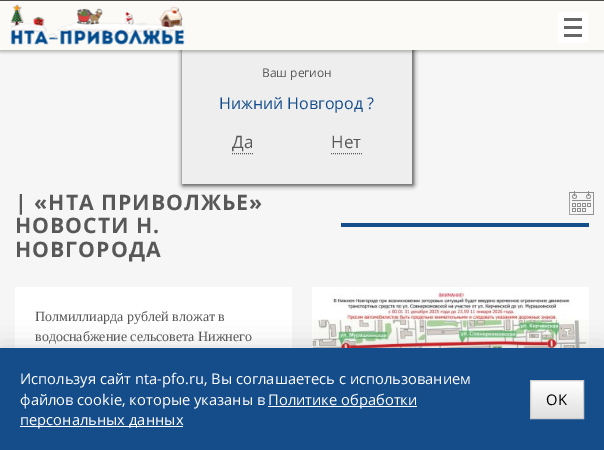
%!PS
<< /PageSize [604 450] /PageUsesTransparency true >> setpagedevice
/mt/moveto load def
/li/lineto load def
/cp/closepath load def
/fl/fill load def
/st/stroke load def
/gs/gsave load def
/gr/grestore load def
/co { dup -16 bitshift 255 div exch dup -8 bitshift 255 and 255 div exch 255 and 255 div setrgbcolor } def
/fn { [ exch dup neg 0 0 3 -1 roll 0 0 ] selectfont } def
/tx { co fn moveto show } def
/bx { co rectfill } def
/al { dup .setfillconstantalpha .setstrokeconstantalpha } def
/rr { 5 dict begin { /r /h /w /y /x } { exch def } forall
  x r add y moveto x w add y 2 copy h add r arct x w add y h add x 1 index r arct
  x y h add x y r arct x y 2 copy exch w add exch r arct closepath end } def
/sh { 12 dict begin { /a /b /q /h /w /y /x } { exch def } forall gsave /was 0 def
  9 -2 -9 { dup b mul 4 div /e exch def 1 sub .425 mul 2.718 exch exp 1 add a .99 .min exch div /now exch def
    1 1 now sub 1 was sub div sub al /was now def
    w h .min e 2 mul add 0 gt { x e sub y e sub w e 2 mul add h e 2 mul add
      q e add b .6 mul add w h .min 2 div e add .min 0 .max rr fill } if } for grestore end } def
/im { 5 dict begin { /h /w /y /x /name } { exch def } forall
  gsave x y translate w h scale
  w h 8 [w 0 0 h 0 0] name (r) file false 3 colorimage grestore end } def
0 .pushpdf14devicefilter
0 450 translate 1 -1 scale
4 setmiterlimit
0 0 604 450 16#F6F6F6 bx
16#666666 co
183 46 230 139 0 2.5 1 sh
183 46 230 139 0 2.5 1 sh
182 50 230 134 16#EEEEEE bx
16#000000 co
0 2 604 50 0 1.5 .25 sh
0 1 604 49 16#FBFAF7 bx
0 0 604 1 16#4D4D4D bx
(media/1.raw) 10 4 175 41 im
16#FFFFFF co
558 12 30 31 3 rr fl
564 18 18 3 16#666666 bx
564 26 18 3 16#666666 bx
564 34 18 3 16#666666 bx
16#585858 co
[1 1] 0 setdash
232 153.5 mt 253 153.5 li st
331 153.5 mt 362 153.5 li st
341 223 248 4 16#154C8A bx
(media/2.raw) 569 191 25 24 im
15 287 277 61 16#FFFFFF bx
(media/3.raw) 312 287 277 61 im
16#000000 co
0 348 604 102 0 12.5 .15 sh
0 348 604 102 16#154C8A bx
268 406 149 1 16#FFFFFF bx
20 426 163 1 16#FFFFFF bx
gs 531 381 mt 583 381 li 583 418 li 531 418 li cp clip newpath
<< /ShadingType 2 /ColorSpace /DeviceRGB /Coords [557 381 557 418] /Extend [true true] /Function << /FunctionType 2 /Domain [0 1] /C0 [1 1 1] /C1 [.878 .878 .878] /N 1 >> >> shfill gr
16#CCCCCC co
[] 0 setdash
530.5 380.5 53 38 rectstroke
(Ваш регион) 262 77 /OpenSans-Regular 12 16#585858 tx
(Нижний Новгород ?) 219 109 /OpenSans-Regular 16 16#154C8A tx
(Да) 232 148 /OpenSans-Regular 17 16#585858 tx
(Нет) 331 148 /OpenSans-Regular 17 16#585858 tx
/OpenSans-Bold 21.25 fn
15 210 mt 1 0 (| «НТА ПРИВОЛЖЬЕ») ashow
15 233 mt 1 0 (НОВОСТИ Н.) ashow
15 257 mt 1 0 (НОВГОРОДА) ashow
(Полмиллиарда рублей вложат в) 35 321 /Tinos-Regular 14 16#585858 tx
(водоснабжение сельсовета Нижнего) 35 341 /Tinos-Regular 14 16#585858 tx
(Используя сайт nta-pfo.ru, Вы соглашаетесь с использованием) 20 384 /OpenSans-Regular 14.7 16#FFFFFF tx
(файлов cookie, которые указаны в) 20 405 /OpenSans-Regular 14.7 16#FFFFFF tx
(Политике обработки) 268 405 /OpenSans-Regular 14.7 16#FFFFFF tx
(персональных данных) 20 425 /OpenSans-Regular 14.7 16#FFFFFF tx
16#000000 co
546 405 mt 1 0 (OK) ashow
.poppdf14devicefilter showpage
